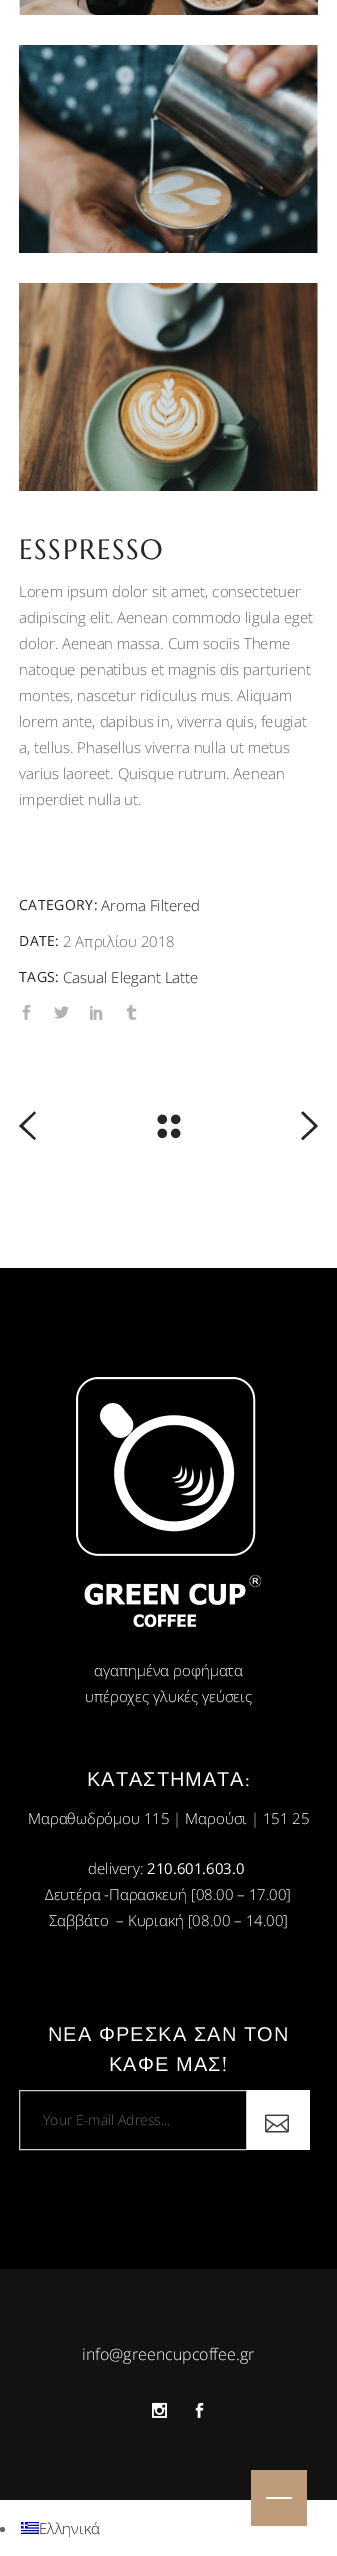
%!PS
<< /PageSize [337 2556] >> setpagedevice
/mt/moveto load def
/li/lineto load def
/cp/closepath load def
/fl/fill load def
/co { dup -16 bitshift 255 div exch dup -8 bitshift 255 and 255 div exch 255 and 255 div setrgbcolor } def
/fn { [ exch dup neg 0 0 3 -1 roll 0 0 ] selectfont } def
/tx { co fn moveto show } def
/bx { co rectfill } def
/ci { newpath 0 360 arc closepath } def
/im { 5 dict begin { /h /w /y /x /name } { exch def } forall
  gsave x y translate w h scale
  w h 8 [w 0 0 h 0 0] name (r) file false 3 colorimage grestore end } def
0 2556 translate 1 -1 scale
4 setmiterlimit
0 0 337 2556 16#FFFFFF bx
(media/1.raw) 19 0 299 15 im
(media/2.raw) 19 45 299 208 im
(media/3.raw) 19 283 299 208 im
(media/4.raw) 22 1004 9 16 im
(media/5.raw) 54 1006 15 13 im
(media/6.raw) 90 1005 13 15 im
(media/7.raw) 126 1004 11 16 im
16#262626 co
36 1113 mt 23 1126 li 36 1138.5 li 34.5 1140 li 19 1126 li 34.5 1111.5 li cp fl
(media/8.raw) 157 1114 24 11 im
(media/8.raw) 157 1128 24 11 im
301 1113 mt 303 1111.5 li 318 1126 li 303 1140 li 301 1138.5 li 314.5 1126 li cp fl
0 1268 337 1001 16#000000 bx
(media/9.raw) 76 1377 185 250 im
16#CCCCCC co
19.5 2090.5 227 59 rectstroke
247 2090 63 60 16#FFFFFF bx
(media/10.raw) 265 2114 24 19 im
0 2269 337 231 16#121212 bx
(media/11.raw) 152 2402 15 16 im
(media/12.raw) 195 2402 9 16 im
251 2470 56 56 16#BE9C79 bx
266 2497 26 2 16#FFFFFF bx
16#656565 co
2.5 2529.5 2.5 ci fl
(media/13.raw) 21 2522 18 12 im
/Marcellus-Regular 28 fn
16#262626 co
19 559 mt 1.5 0 (ESSPRESSO) ashow
(Lorem ipsum dolor sit amet, consectetuer) 19 597 /OpenSans-Light 15 16#656565 tx
(adipiscing elit. Aenean commodo ligula eget) 19 623 /OpenSans-Light 15 16#656565 tx
(dolor. Aenean massa. Cum sociis Theme) 19 649 /OpenSans-Light 15 16#656565 tx
(natoque penatibus et magnis dis parturient) 19 675 /OpenSans-Light 15 16#656565 tx
(montes, nascetur ridiculus mus. Aliquam) 19 701 /OpenSans-Light 15 16#656565 tx
(lorem ante, dapibus in, viverra quis, feugiat) 19 727 /OpenSans-Light 15 16#656565 tx
(a, tellus. Phasellus viverra nulla ut metus) 19 753 /OpenSans-Light 15 16#656565 tx
(varius laoreet. Quisque rutrum. Aenean) 19 779 /OpenSans-Light 15 16#656565 tx
(imperdiet nulla ut.) 19 805 /OpenSans-Light 15 16#656565 tx
/OpenSans-Regular 14 fn
16#262626 co
19 910 mt .5 0 (CATEGORY:) ashow
(Aroma Filtered) 101 911 /OpenSans-Light 15 16#262626 tx
/OpenSans-Regular 14 fn
19 946 mt .5 0 (DATE:) ashow
(2 Απριλίου 2018) 63 947 /OpenSans-Light 15 16#656565 tx
/OpenSans-Regular 14 fn
16#262626 co
19 982 mt .5 0 (TAGS:) ashow
(Casual Elegant Latte) 63 983 /OpenSans-Light 15 16#262626 tx
(αγαπημένα ροφήματα) 94 1676 /OpenSans-Light 15 16#FFFFFF tx
(υπέροχες γλυκές γεύσεις) 85 1702 /OpenSans-Light 15 16#FFFFFF tx
/LiberationSans-Regular 20 fn
87 1786 mt 1 0 (ΚΑΤΑΣΤΗΜΑΤΑ) ashow
/Marcellus-Regular 20 fn
245 1786 mt 1 0 (:) ashow
(Μαραθωδρόμου 115 | Μαρούσι | 151 25) 28 1824 /OpenSans-Light 15 16#FFFFFF tx
(delivery:) 88 1874 /OpenSans-Light 15 16#FFFFFF tx
(210.601.603.0) 147 1874 /OpenSans-Regular 15 16#FFFFFF tx
(Δευτέρα -Παρασκευή [08.00 – 17.00]) 45 1900 /OpenSans-Light 15 16#FFFFFF tx
(Σαββάτο  – Κυριακή [08.00 – 14.00]) 49 1926 /OpenSans-Light 15 16#FFFFFF tx
/LiberationSans-Regular 20 fn
48 2041 mt .5 0 32 1 0 (ΝΕΑ ΦΡΕΣΚΑ ΣΑΝ ΤΟΝ) awidthshow
109 2071 mt .5 0 32 1 0 (ΚΑΦΕ ΜΑΣ) awidthshow
/Marcellus-Regular 20 fn
222 2071 mt 1 0 (!) ashow
(Your E-mail Adress...) 43 2125 /OpenSans-Light 14 16#656565 tx
(info@greencupcoffee.gr) 82 2360 /OpenSans-Light 16 16#FFFFFF tx
(Ελληνικά) 39 2534 /OpenSans-Light 15 16#262626 tx
showpage
